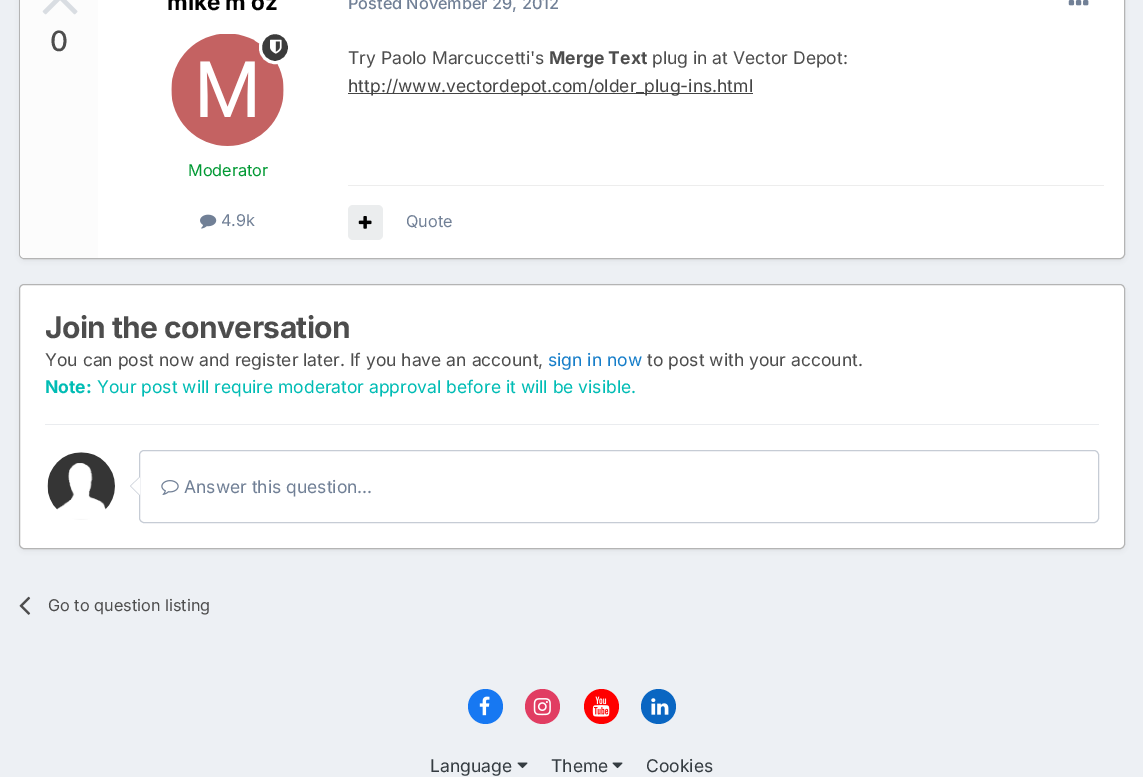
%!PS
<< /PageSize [1143 777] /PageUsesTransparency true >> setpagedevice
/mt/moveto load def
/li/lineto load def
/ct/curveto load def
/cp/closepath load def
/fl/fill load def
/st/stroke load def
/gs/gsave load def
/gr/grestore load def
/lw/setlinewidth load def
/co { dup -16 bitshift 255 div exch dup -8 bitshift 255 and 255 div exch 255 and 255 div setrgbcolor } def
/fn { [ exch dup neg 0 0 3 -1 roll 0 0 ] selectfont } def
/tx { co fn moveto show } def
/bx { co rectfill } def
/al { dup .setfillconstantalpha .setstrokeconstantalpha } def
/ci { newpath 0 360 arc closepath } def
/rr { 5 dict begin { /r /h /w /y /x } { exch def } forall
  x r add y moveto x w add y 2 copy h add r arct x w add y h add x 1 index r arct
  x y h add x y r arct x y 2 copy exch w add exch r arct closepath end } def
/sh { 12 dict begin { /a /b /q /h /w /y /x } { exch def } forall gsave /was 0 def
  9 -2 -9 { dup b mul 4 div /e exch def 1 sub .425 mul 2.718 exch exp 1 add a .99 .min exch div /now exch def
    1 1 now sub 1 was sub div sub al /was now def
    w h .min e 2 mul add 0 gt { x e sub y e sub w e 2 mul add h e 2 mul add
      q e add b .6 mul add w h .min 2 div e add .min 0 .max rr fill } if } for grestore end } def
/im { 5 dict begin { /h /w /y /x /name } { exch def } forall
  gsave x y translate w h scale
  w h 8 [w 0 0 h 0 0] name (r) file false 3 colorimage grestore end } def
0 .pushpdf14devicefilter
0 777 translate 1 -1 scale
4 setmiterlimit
0 0 1143 777 16#EDF0F4 bx
16#3B3B3B co
20 -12 1104 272 4 2.5 .1 sh
16#FFFFFF co
19.5 -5.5 1105 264 4.5 rr gs fl gr
16#B4B4B4 co
st
16#FCFCFC co
25 -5 mt 98 -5 li 98 258 li 25 258 li 22 258 20 256 20 253 ct 20 0 li 20 -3 22 -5 25 -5 ct cp fl
(media/1.raw) 42 0 36 15 im
(media/3.raw) 171 34 113 112 im
16#3B3B3B co
260.5 32.5 29 30 14.5 rr gs fl gr
16#FFFFFF co
3 lw
st
(media/2.raw) 270 39 12 15 im
(media/4.raw) 200 214 17 15 im
(media/5.raw) 1068 0 21 6 im
348 93 405 1 16#454545 bx
348 185 756 1 16#EDEDED bx
16#EBEDEE co
348 205 35 35 5 rr fl
(media/6.raw) 358 216 14 13 im
16#3B3B3B co
20 288 1104 262 4 2.5 .1 sh
16#FFFFFF co
19.5 284.5 1105 264 4.5 rr gs fl gr
16#B4B4B4 co
1 lw
st
45 424 1054 1 16#EAECEF bx
(media/7.raw) 47 452 68 68 im
16#C6CCD5 co
139.5 450.5 959 72 4.5 rr st
139 477.5 mt 139 495 li 130 486 li cp fl
16#FFFFFF co
140 477.5 mt 140 495 li 131 486 li cp fl
(media/8.raw) 161 480 18 15 im
(media/9.raw) 19 596 12 19 im
16#1778F2 co
485.5 706.5 17.5 ci fl
(media/10.raw) 479 696 11 20 im
16#E13D62 co
542.5 706.5 17.5 ci fl
(media/11.raw) 533 698 18 18 im
16#FF0000 co
601.5 706.5 17.5 ci fl
(media/12.raw) 592 696 18 21 im
16#0A66C2 co
658.5 706.5 17.5 ci fl
(media/13.raw) 651 698 18 17 im
(media/14.raw) 517 762 11 7 im
(media/14.raw) 612 762 11 7 im
(0) 50 51 /Inter-Medium 28 16#4D4D4D tx
(mike m oz) 167 10 /Inter-Bold 22.5 16#000000 tx
(Moderator) 188 176 /Inter-Regular 16.25 16#009933 tx
(4.9k) 221 226 /Inter-Regular 16.25 16#718096 tx
(Posted November 29, 2012) 348 9 /Inter-Medium 16.25 16#718096 tx
(Try Paolo Marcuccetti's) 348 64 /Inter-Regular 17.5 16#4D4D4D tx
(Merge Text) 549 64 /Inter-Bold 17.5 16#4D4D4D tx
(plug in at Vector Depot:) 652 64 /Inter-Regular 17.5 16#4D4D4D tx
(http://www.vectordepot.com/older_plug-ins.html) 348 92 /Inter-Regular 17.5 16#454545 tx
(Quote) 406 227 /Inter-Regular 16.25 16#718096 tx
/Inter-Bold 30 fn
16#4D4D4D co
45 338 mt -.6 0 (Join the conversation) ashow
(You can post now and register later. If you have an account,) 45 366 /Inter-Regular 17.5 16#4D4D4D tx
(sign in now) 548 366 /Inter-Regular 17.5 16#177EC9 tx
(to post with your account.) 647 366 /Inter-Regular 17.5 16#4D4D4D tx
(Note:) 45 393 /Inter-Bold 17.5 16#00BCB4 tx
(Your post will require moderator approval before it will be visible.) 97 393 /Inter-Regular 17.5 16#00BCB4 tx
(Answer this question...) 184 493 /Inter-Regular 17.5 16#718096 tx
(Go to question listing) 48 611 /Inter-Regular 16.25 16#4D4D4D tx
(Language) 430 772 /Inter-Regular 17.5 16#353C41 tx
(Theme) 551 772 /Inter-Regular 17.5 16#353C41 tx
(Cookies) 646 772 /Inter-Regular 17.5 16#353C41 tx
.poppdf14devicefilter showpage
